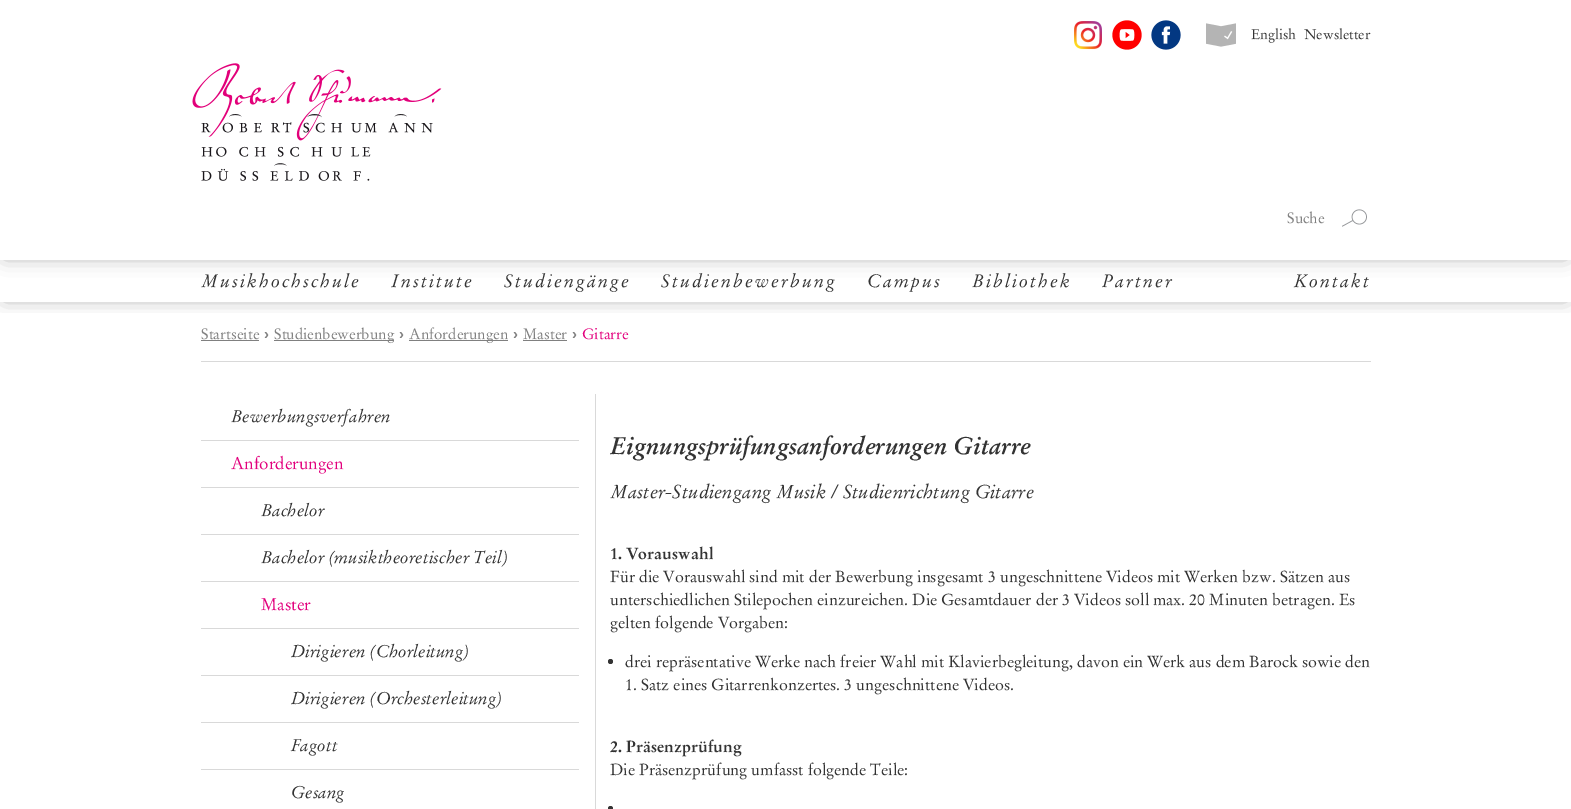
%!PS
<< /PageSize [1571 809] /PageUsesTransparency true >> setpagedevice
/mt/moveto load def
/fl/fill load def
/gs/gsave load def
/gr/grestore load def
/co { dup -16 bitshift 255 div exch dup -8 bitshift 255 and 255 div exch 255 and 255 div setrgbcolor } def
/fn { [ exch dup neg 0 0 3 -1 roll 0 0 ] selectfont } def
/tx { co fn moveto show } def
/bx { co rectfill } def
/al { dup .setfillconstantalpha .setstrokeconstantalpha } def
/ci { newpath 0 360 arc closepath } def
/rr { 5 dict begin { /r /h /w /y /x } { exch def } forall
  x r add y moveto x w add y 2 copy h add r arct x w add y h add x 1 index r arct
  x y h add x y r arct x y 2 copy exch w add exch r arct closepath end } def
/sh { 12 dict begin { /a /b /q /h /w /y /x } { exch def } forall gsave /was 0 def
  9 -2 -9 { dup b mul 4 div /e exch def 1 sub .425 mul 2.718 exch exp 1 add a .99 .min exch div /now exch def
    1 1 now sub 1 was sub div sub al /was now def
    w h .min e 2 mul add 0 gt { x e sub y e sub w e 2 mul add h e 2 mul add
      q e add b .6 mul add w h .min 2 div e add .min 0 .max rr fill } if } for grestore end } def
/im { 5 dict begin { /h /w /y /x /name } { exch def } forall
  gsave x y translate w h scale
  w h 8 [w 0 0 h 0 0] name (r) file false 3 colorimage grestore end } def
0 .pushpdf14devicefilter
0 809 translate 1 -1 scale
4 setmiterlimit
0 0 1571 809 16#FFFFFF bx
16#000000 co
5 5 1561 250 0 10 .4 sh
gs
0 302 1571 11 rectclip
5 265 1561 32 0 10 .4 sh
gr
0 0 1571 260 16#FFFFFF bx
(media/1.raw) 1074 21 28 29 im
(media/2.raw) 1112 20 30 30 im
(media/3.raw) 1151 20 30 30 im
(media/4.raw) 1206 23 30 24 im
(media/5.raw) 192 63 250 118 im
(media/6.raw) 1342 209 25 18 im
201 340 58 1 16#808080 bx
274 340 120 1 16#808080 bx
409 340 99 1 16#808080 bx
523 340 44 1 16#808080 bx
201 361 1170 1 16#D9D9D9 bx
595 394 1 415 16#D9D9D9 bx
201 440 378 1 16#D9D9D9 bx
201 487 378 1 16#D9D9D9 bx
201 534 378 1 16#D9D9D9 bx
201 581 378 1 16#D9D9D9 bx
201 628 378 1 16#D9D9D9 bx
201 675 378 1 16#D9D9D9 bx
201 722 378 1 16#D9D9D9 bx
201 769 378 1 16#D9D9D9 bx
16#333333 co
610.5 661.5 2.5 ci fl
610.5 808.5 2.5 ci fl
(English) 1251 39 /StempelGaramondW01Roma-Regular 14 16#333333 tx
(Newsletter) 1304 39 /StempelGaramondW01Roma-Regular 14 16#333333 tx
(Suche) 1287 223 /StempelGaramondW01Roma-Regular 15 16#808080 tx
/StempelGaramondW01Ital-Regular 18 fn
16#333333 co
201 287 mt 2 0 (Musikhochschule) ashow
391 287 mt 2 0 (Institute) ashow
504 287 mt 2 0 (Studiengänge) ashow
661 287 mt 2 0 (Studienbewerbung) ashow
867 287 mt 2 0 (Campus) ashow
972 287 mt 2 0 (Bibliothek) ashow
1102 287 mt 2 0 (Partner) ashow
1294 287 mt 2 0 (Kontakt) ashow
(Startseite) 201 339 /StempelGaramondW01Roma-Regular 15 16#808080 tx
(›) 264 339 /LiberationSans-Bold 15 16#808080 tx
(Studienbewerbung) 274 339 /StempelGaramondW01Roma-Regular 15 16#808080 tx
(›) 399 339 /LiberationSans-Bold 15 16#808080 tx
(Anforderungen) 409 339 /StempelGaramondW01Roma-Regular 15 16#808080 tx
(›) 513 339 /LiberationSans-Bold 15 16#808080 tx
(Master) 523 339 /StempelGaramondW01Roma-Regular 15 16#808080 tx
(›) 572 339 /LiberationSans-Bold 15 16#808080 tx
(Gitarre) 582 339 /StempelGaramondW01Roma-Regular 15 16#E2007D tx
(Bewerbungsverfahren) 231 422 /StempelGaramondW01Ital-Regular 17 16#333333 tx
(Anforderungen) 231 469 /StempelGaramondW01Roma-Regular 17 16#E2007D tx
(Bachelor) 261 516 /StempelGaramondW01Ital-Regular 17 16#333333 tx
(Bachelor \(musiktheoretischer Teil\)) 261 563 /StempelGaramondW01Ital-Regular 17 16#333333 tx
(Master) 261 610 /StempelGaramondW01Roma-Regular 17 16#E2007D tx
(Dirigieren \(Chorleitung\)) 291 657 /StempelGaramondW01Ital-Regular 17 16#333333 tx
(Dirigieren \(Orchesterleitung\)) 291 704 /StempelGaramondW01Ital-Regular 17 16#333333 tx
(Fagott) 291 751 /StempelGaramondW01Ital-Regular 17 16#333333 tx
(Gesang) 291 798 /StempelGaramondW01Ital-Regular 17 16#333333 tx
(Eignungsprüfungsanforderungen Gitarre) 610 454 /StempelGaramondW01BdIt-Regular 24 16#333333 tx
(Master-Studiengang Musik / Studienrichtung Gitarre) 610 498 /StempelGaramondW01Ital-Regular 18.75 16#333333 tx
(1. Vorauswahl) 610 559 /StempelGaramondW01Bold-Bold 16 16#333333 tx
(Für die Vorauswahl sind mit der Bewerbung insgesamt 3 ungeschnittene Videos mit Werken bzw. Sätzen aus) 610 582 /StempelGaramondW01Roma-Regular 16 16#333333 tx
(unterschiedlichen Stilepochen einzureichen. Die Gesamtdauer der 3 Videos soll max. 20 Minuten betragen. Es) 610 605 /StempelGaramondW01Roma-Regular 16 16#333333 tx
(gelten folgende Vorgaben:) 610 628 /StempelGaramondW01Roma-Regular 16 16#333333 tx
(drei repräsentative Werke nach freier Wahl mit Klavierbegleitung, davon ein Werk aus dem Barock sowie den) 625 667 /StempelGaramondW01Roma-Regular 16 16#333333 tx
(1. Satz eines Gitarrenkonzertes. 3 ungeschnittene Videos.) 625 690 /StempelGaramondW01Roma-Regular 16 16#333333 tx
(2. Präsenzprüfung) 610 752 /StempelGaramondW01Bold-Bold 16 16#333333 tx
(Die Präsenzprüfung umfasst folgende Teile:) 610 775 /StempelGaramondW01Roma-Regular 16 16#333333 tx
.poppdf14devicefilter showpage
